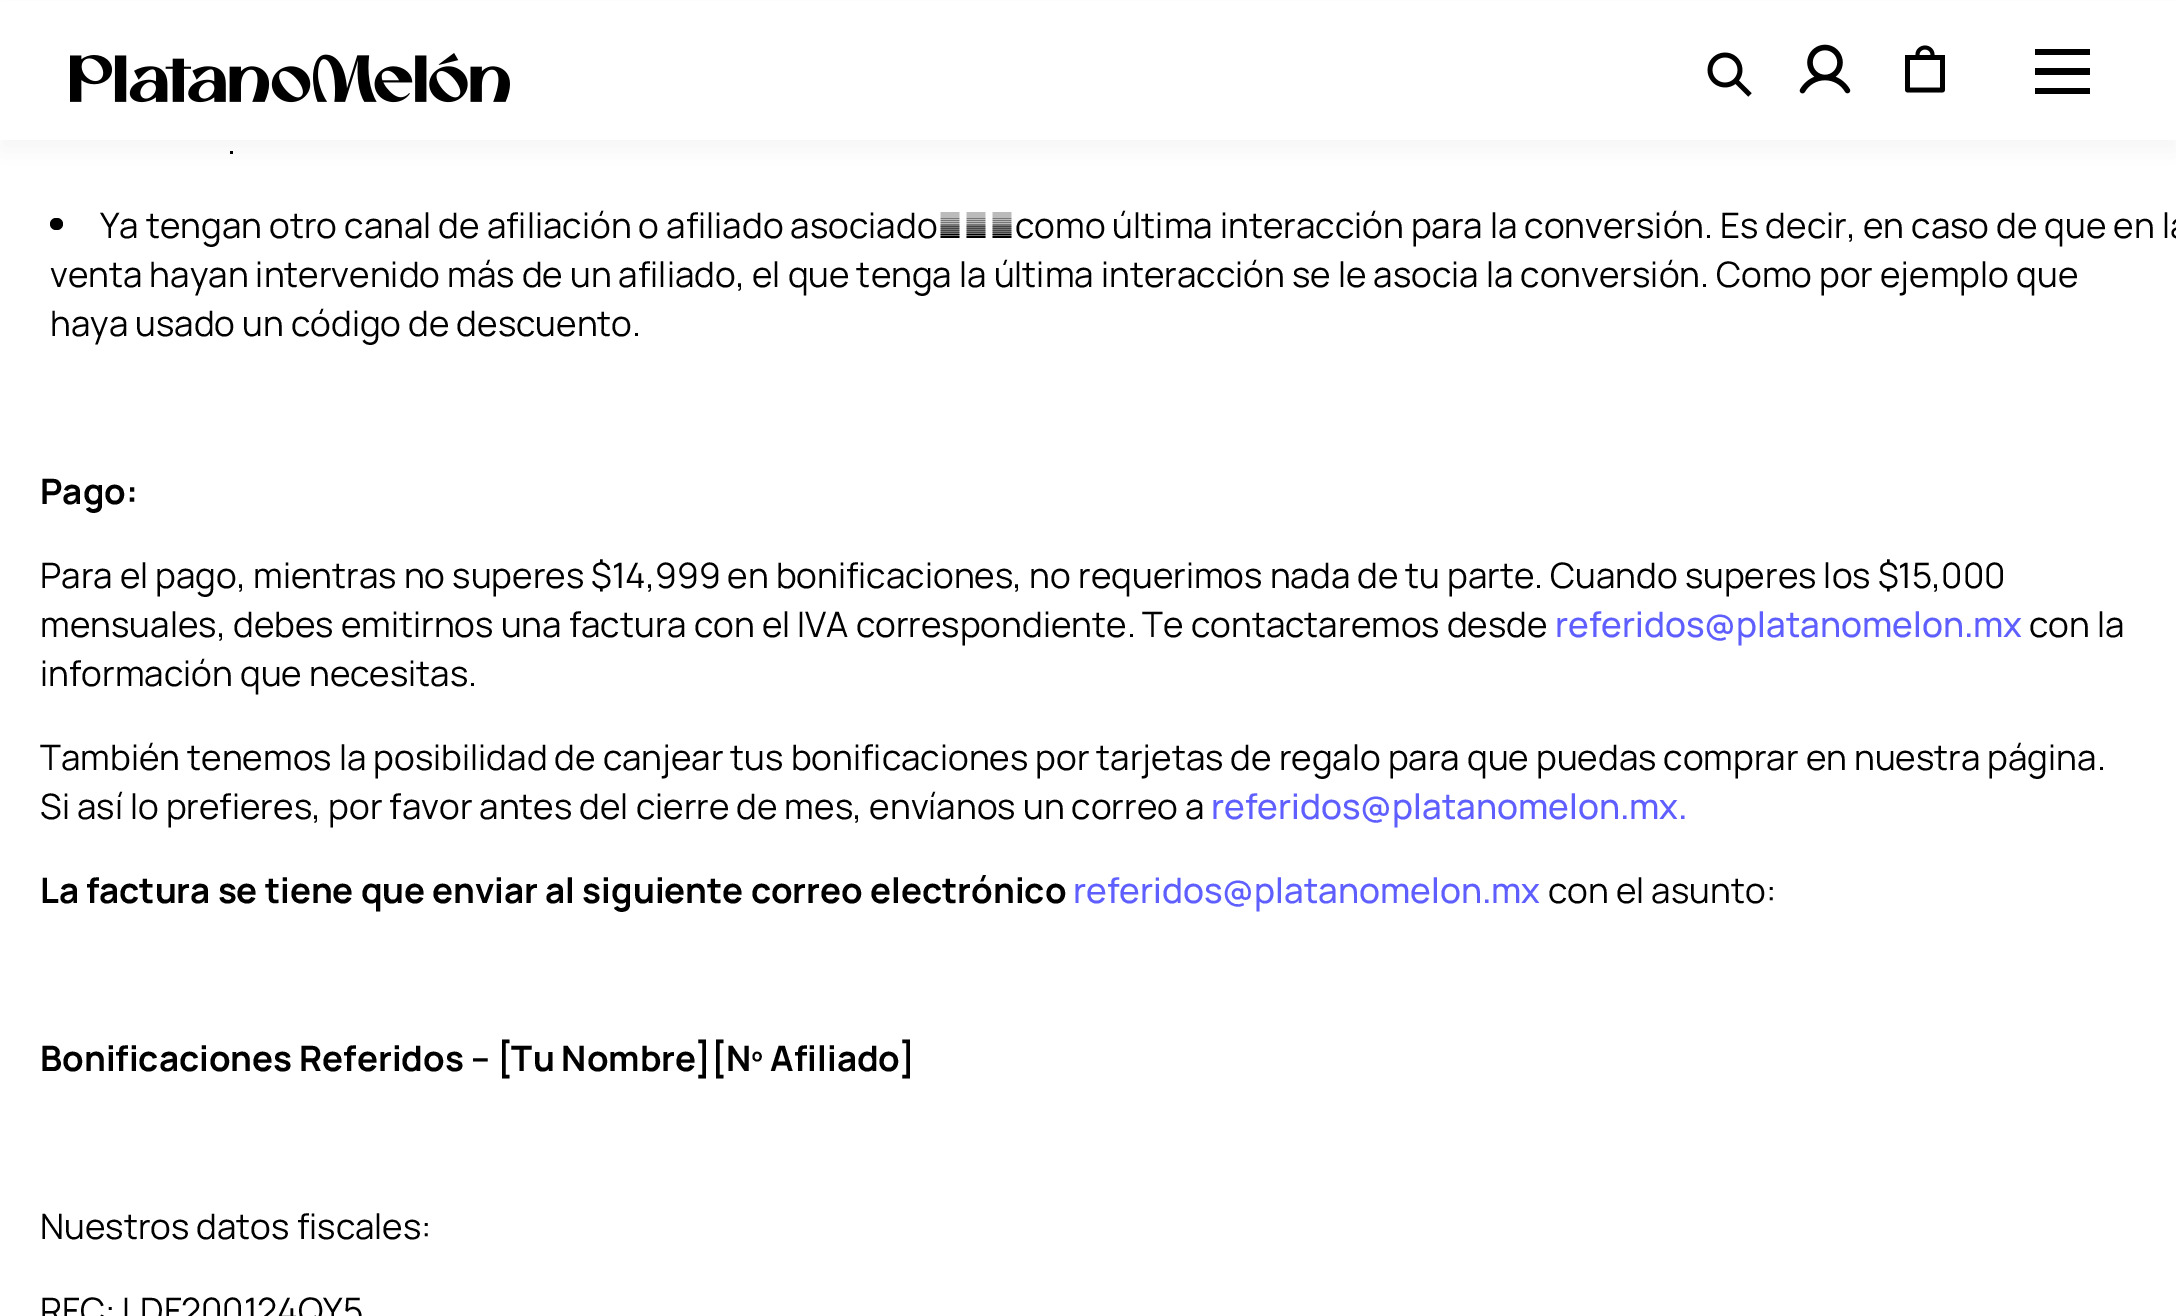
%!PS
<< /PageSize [2176 1316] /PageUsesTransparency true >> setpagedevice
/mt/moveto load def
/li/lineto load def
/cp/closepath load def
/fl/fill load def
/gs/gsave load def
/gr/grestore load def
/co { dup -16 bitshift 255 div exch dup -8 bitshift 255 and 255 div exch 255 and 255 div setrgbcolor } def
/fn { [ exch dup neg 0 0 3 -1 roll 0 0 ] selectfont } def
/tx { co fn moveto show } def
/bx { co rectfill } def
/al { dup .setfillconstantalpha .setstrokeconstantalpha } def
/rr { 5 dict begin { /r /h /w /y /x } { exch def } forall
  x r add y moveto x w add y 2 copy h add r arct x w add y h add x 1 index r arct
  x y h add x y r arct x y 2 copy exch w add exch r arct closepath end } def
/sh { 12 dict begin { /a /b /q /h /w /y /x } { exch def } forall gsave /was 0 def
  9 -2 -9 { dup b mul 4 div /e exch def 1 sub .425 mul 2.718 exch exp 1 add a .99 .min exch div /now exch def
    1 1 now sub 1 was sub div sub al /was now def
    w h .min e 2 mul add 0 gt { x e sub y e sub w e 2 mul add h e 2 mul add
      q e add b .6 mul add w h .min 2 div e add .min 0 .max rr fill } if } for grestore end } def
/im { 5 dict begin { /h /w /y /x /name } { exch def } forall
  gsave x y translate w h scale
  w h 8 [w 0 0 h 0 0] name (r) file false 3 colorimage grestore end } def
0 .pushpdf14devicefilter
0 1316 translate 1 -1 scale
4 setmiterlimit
0 0 2176 1316 16#FFFFFF bx
16#D5D5D5 co
0 10 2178 140 0 12.5 .25 sh
0 1 2176 139 16#FFFFFF bx
(media/1.raw) 70 53 440 50 im
(media/2.raw) 1707 52 45 45 im
(media/3.raw) 1799 44 52 50 im
(media/4.raw) 1905 45 40 48 im
gs
2025 33 65 65 rectclip
16#000000 co
2035 49 mt 2094 49 li 2094 55 li 2035 55 li cp 2035 68 mt 2094 68 li 2094 75 li 2035 75 li cp 2035 88 mt 2094 88 li 2094 94 li 2035 94 li cp eofill
gr
16#000000 co
50 218 13 12 6 rr fl
(.) 227 154 /Manrope-ExtraLight 35 16#000000 tx
(Ya tengan otro canal de afiliación o afiliado asociado como última interacción para la conversión. Es decir, en caso de que en la) 100 238 /Manrope-ExtraLight 35 16#000000 tx
(venta hayan intervenido más de un afiliado, el que tenga la última interacción se le asocia la conversión. Como por ejemplo que) 50 287 /Manrope-ExtraLight 35 16#000000 tx
(haya usado un código de descuento.) 50 336 /Manrope-ExtraLight 35 16#000000 tx
(Pago:) 40 504 /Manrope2-ExtraLight 35 16#000000 tx
(Para el pago, mientras no superes $14,999 en bonificaciones, no requerimos nada de tu parte. Cuando superes los $15,000) 40 588 /Manrope-ExtraLight 35 16#000000 tx
(mensuales, debes emitirnos una factura con el IVA correspondiente. Te contactaremos desde) 40 637 /Manrope-ExtraLight 35 16#000000 tx
(referidos@platanomelon.mx) 1555 637 /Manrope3-ExtraLight 35 16#5F5FFF tx
(con la) 2029 637 /Manrope-ExtraLight 35 16#000000 tx
(información que necesitas.) 40 686 /Manrope-ExtraLight 35 16#000000 tx
(También tenemos la posibilidad de canjear tus bonificaciones por tarjetas de regalo para que puedas comprar en nuestra página.) 40 770 /Manrope-ExtraLight 35 16#000000 tx
(Si así lo prefieres, por favor antes del cierre de mes, envíanos un correo a) 40 819 /Manrope-ExtraLight 35 16#000000 tx
(referidos@platanomelon.mx.) 1211 819 /Manrope3-ExtraLight 35 16#5F5FFF tx
(La factura se tiene que enviar al siguiente correo electrónico) 40 903 /Manrope2-ExtraLight 35 16#000000 tx
(referidos@platanomelon.mx) 1073 903 /Manrope3-ExtraLight 35 16#5F5FFF tx
(con el asunto:) 1548 903 /Manrope-ExtraLight 35 16#000000 tx
(Bonificaciones Referidos – [Tu Nombre][Nº Afiliado]) 40 1071 /Manrope2-ExtraLight 35 16#000000 tx
(Nuestros datos fiscales:) 40 1239 /Manrope-ExtraLight 35 16#000000 tx
(RFC: LDF200124QY5) 40 1323 /Manrope-ExtraLight 35 16#000000 tx
.poppdf14devicefilter showpage
